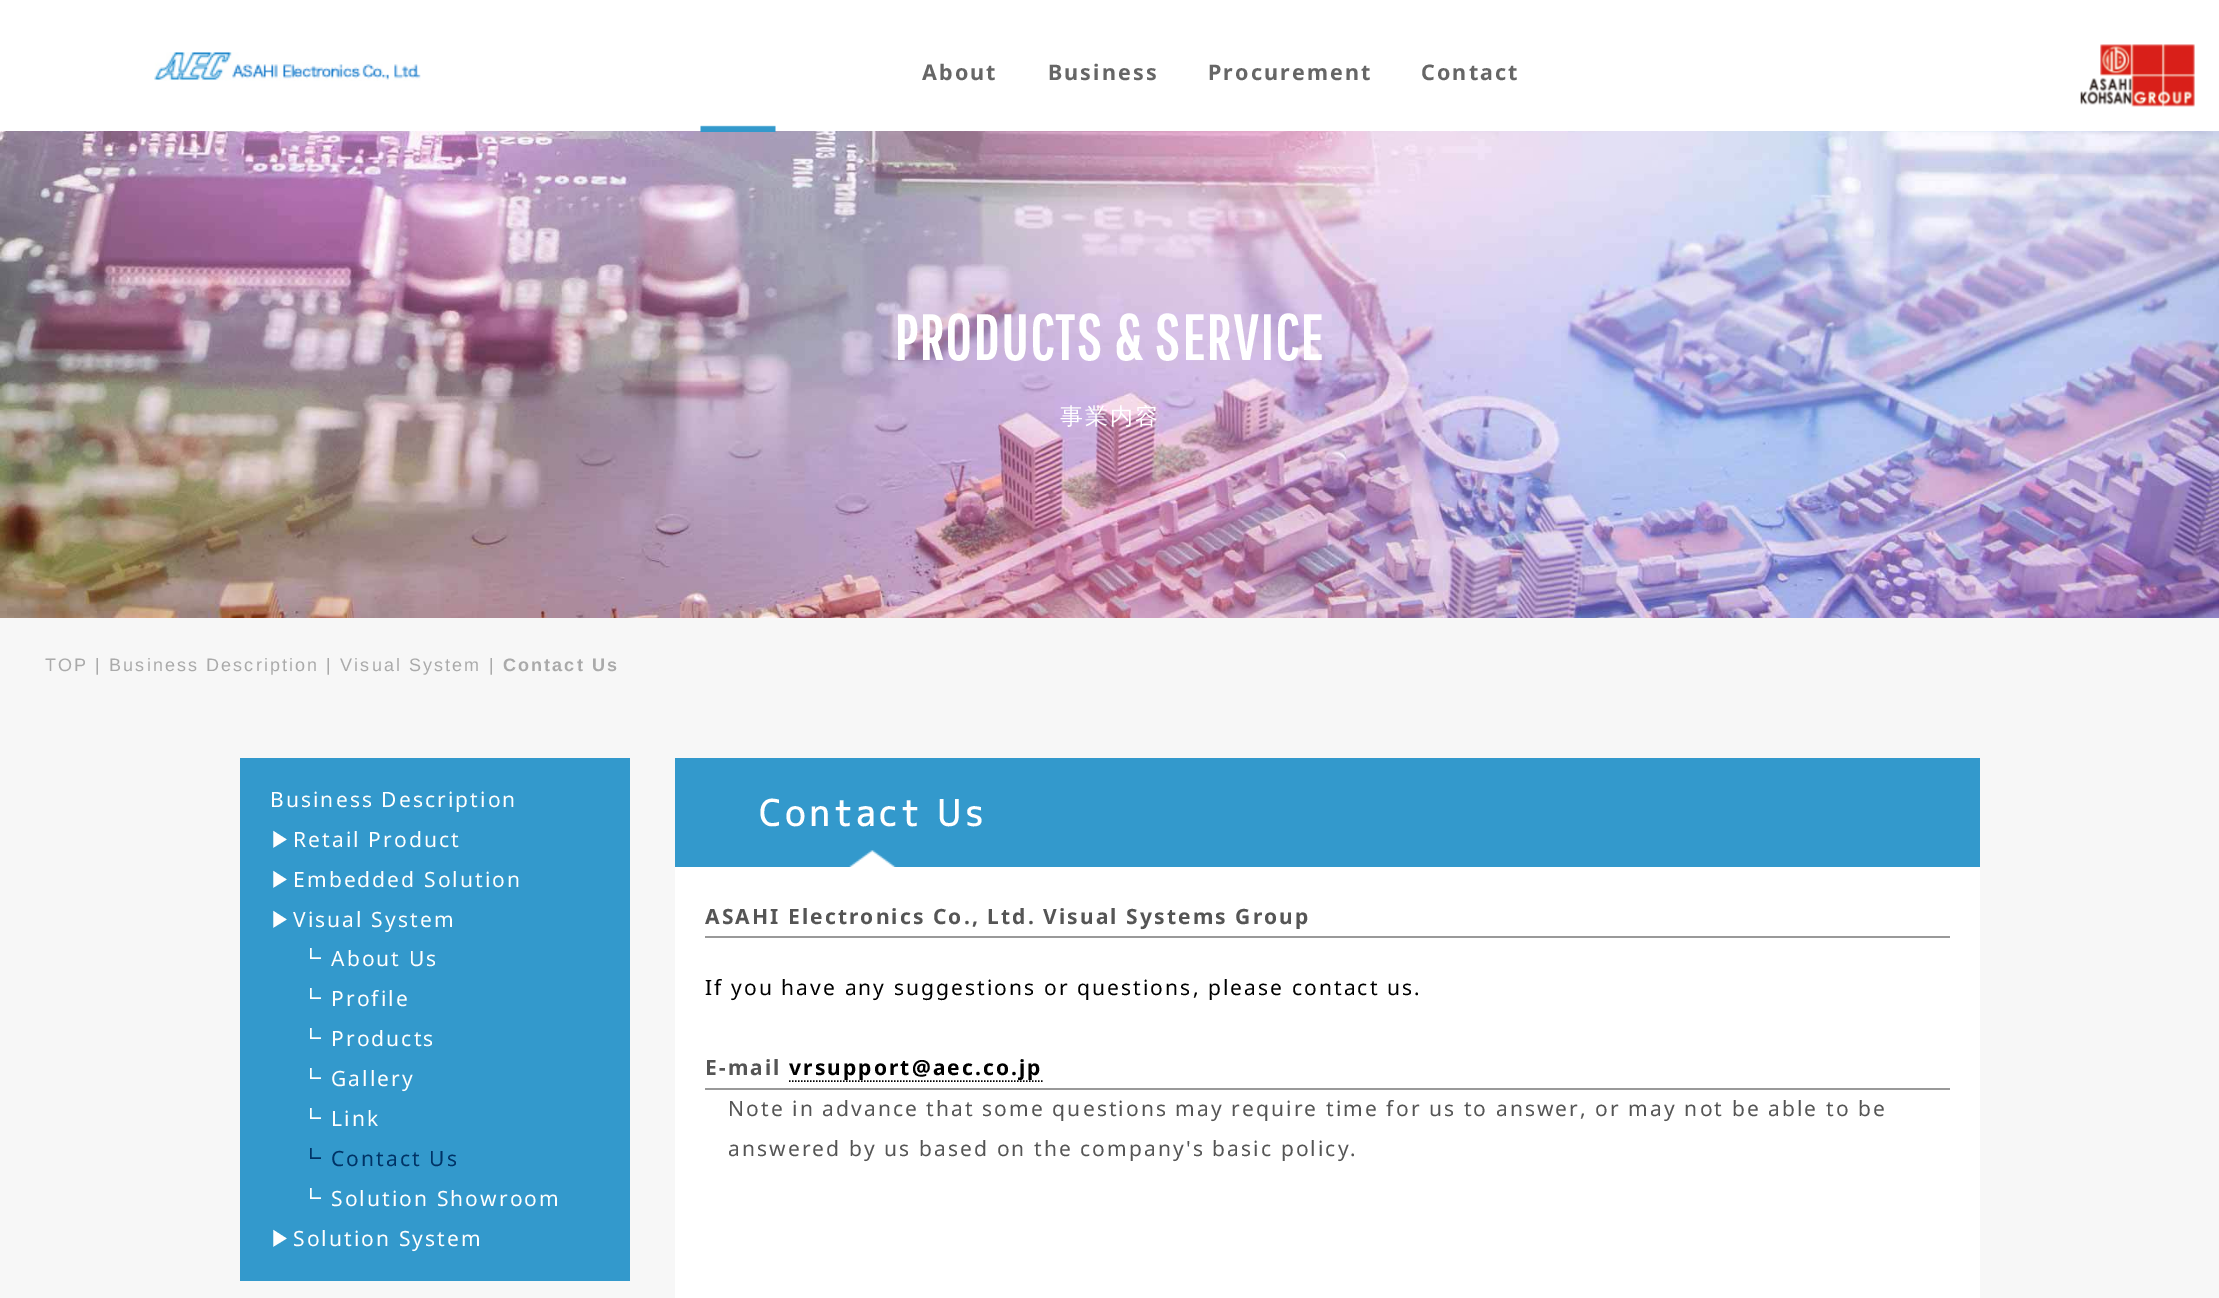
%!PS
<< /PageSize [2219 1298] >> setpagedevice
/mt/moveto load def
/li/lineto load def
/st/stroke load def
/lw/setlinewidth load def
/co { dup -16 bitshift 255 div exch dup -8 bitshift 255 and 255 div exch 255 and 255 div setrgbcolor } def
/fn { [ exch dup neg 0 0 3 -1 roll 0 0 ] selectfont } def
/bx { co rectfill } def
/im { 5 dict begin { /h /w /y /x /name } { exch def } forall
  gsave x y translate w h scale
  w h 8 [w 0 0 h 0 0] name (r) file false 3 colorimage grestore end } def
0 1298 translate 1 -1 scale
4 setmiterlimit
0 0 2219 1298 16#F7F7F7 bx
0 0 2219 131 16#FFFFFF bx
(media/1.raw) 154 52 267 29 im
(media/4.raw) 0 131 2219 487 im
(media/2.raw) 700 125 76 7 im
(media/3.raw) 2080 44 115 63 im
240 758 390 523 16#3399CC bx
675 758 1305 109 16#3399CC bx
(media/5.raw) 849 850 47 17 im
675 867 1305 431 16#FFFFFF bx
705 936 1245 2 16#999999 bx
705 1088 1245 2 16#999999 bx
16#000000 co
1.5 lw
[1.5 1.5] 0 setdash
789 1081 mt 1042.5 1081 li st
/NotoSans-Bold 21.5 fn
16#666666 co
922 80 mt 2.1 0 (About) ashow
1048 80 mt 2.1 0 (Business) ashow
1208 80 mt 2.1 0 (Procurement) ashow
1421 80 mt 2.1 0 (Contact) ashow
/PathwayGothicOne-Bold 63 fn
16#FFFFFF co
894 360 mt 2.1 0 (PRODUCTS & SERVICE) ashow
/WenQuanYiZenHei-Medium 23 fn
1060 424 mt 2.1 0 (事業内容) ashow
/LiberationSans-Regular 18 fn
16#AAAAAA co
45 671 mt 2.1 0 (TOP | Business Description | Visual System |) ashow
/LiberationSans-Bold 18 fn
503 671 mt 2.1 0 (Contact Us) ashow
/NotoSans-Regular 21 fn
16#FFFFFF co
270 807 mt 2.1 0 (Business Description) ashow
/WenQuanYiZenHei-Medium 21 fn
270 847 mt 2.1 0 (▶) ashow
/NotoSans-Regular 21 fn
293 847 mt 2.1 0 (Retail Product) ashow
/WenQuanYiZenHei-Medium 21 fn
270 887 mt 2.1 0 (▶) ashow
/NotoSans-Regular 21 fn
293 887 mt 2.1 0 (Embedded Solution) ashow
/WenQuanYiZenHei-Medium 21 fn
270 927 mt 2.1 0 (▶) ashow
/NotoSans-Regular 21 fn
293 927 mt 2.1 0 (Visual System) ashow
/WenQuanYiZenHei-Medium 21 fn
300 966 mt 2.1 0 (┗) ashow
/NotoSans-Regular 21 fn
331 966 mt 2.1 0 (About Us) ashow
/WenQuanYiZenHei-Medium 21 fn
300 1006 mt 2.1 0 (┗) ashow
/NotoSans-Regular 21 fn
331 1006 mt 2.1 0 (Profile) ashow
/WenQuanYiZenHei-Medium 21 fn
300 1046 mt 2.1 0 (┗) ashow
/NotoSans-Regular 21 fn
331 1046 mt 2.1 0 (Products) ashow
/WenQuanYiZenHei-Medium 21 fn
300 1086 mt 2.1 0 (┗) ashow
/NotoSans-Regular 21 fn
331 1086 mt 2.1 0 (Gallery) ashow
/WenQuanYiZenHei-Medium 21 fn
300 1126 mt 2.1 0 (┗) ashow
/NotoSans-Regular 21 fn
331 1126 mt 2.1 0 (Link) ashow
/WenQuanYiZenHei-Medium 21 fn
16#003366 co
300 1166 mt 2.1 0 (┗) ashow
/NotoSans-Regular 21 fn
331 1166 mt 2.1 0 (Contact Us) ashow
/WenQuanYiZenHei-Medium 21 fn
16#FFFFFF co
300 1206 mt 2.1 0 (┗) ashow
/NotoSans-Regular 21 fn
331 1206 mt 2.1 0 (Solution Showroom) ashow
/WenQuanYiZenHei-Medium 21 fn
270 1246 mt 2.1 0 (▶) ashow
/NotoSans-Regular 21 fn
293 1246 mt 2.1 0 (Solution System) ashow
/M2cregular-Bold 35.75 fn
759 826 mt 4.25 0 (Contact Us) ashow
/NotoSans-Bold 21 fn
16#555555 co
705 924 mt 2.1 0 (ASAHI Electronics Co., Ltd. Visual Systems Group) ashow
/NotoSans-Regular 21 fn
16#000000 co
705 995 mt 2.1 0 (If you have any suggestions or questions, please contact us.) ashow
/NotoSans-Bold 21 fn
16#555555 co
705 1075 mt 2.1 0 (E-mail) ashow
16#000000 co
789 1075 mt 2.1 0 (vrsupport@aec.co.jp) ashow
/NotoSans-Regular 21 fn
16#555555 co
728 1116 mt 2.1 0 (Note in advance that some questions may require time for us to answer, or may not be able to be) ashow
728 1156 mt 2.1 0 (answered by us based on the company's basic policy.) ashow
showpage
